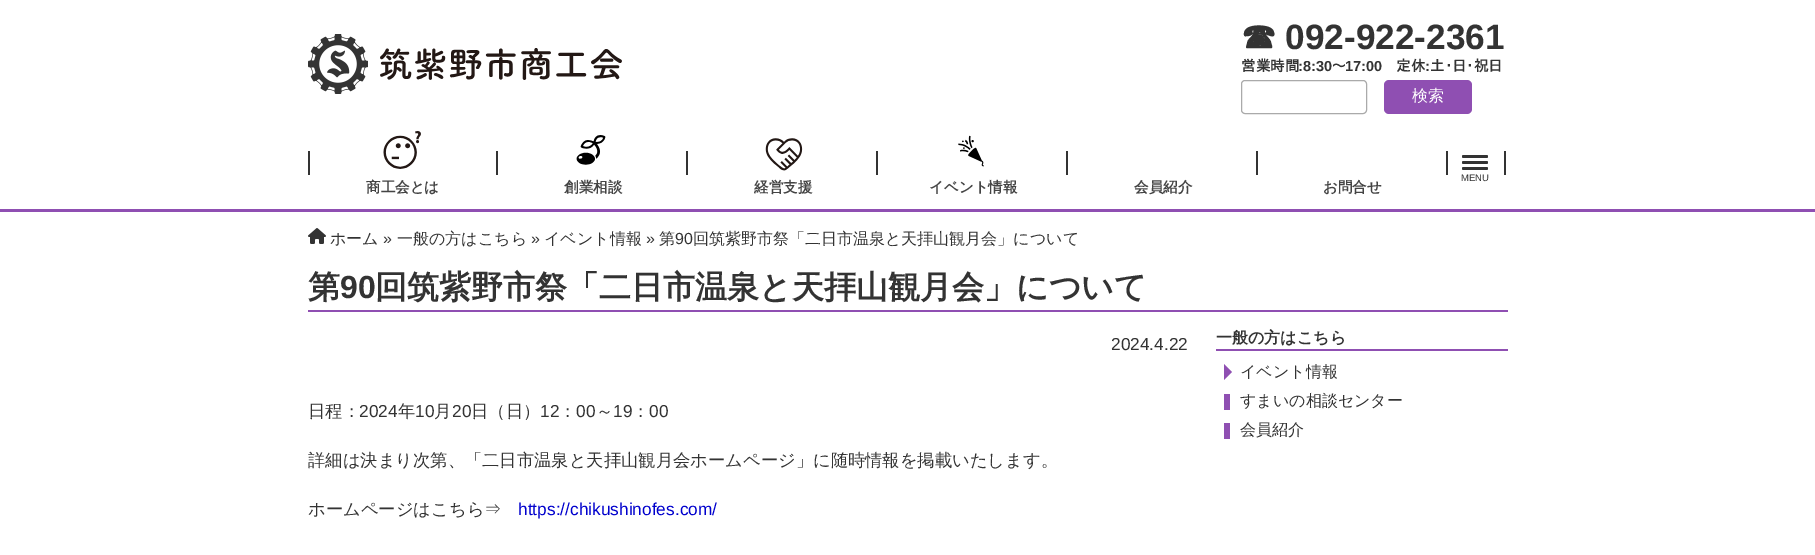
%!PS
<< /PageSize [1815 555] >> setpagedevice
/mt/moveto load def
/li/lineto load def
/cp/closepath load def
/fl/fill load def
/st/stroke load def
/co { dup -16 bitshift 255 div exch dup -8 bitshift 255 and 255 div exch 255 and 255 div setrgbcolor } def
/fn { [ exch dup neg 0 0 3 -1 roll 0 0 ] selectfont } def
/tx { co fn moveto show } def
/bx { co rectfill } def
/rr { 5 dict begin { /r /h /w /y /x } { exch def } forall
  x r add y moveto x w add y 2 copy h add r arct x w add y h add x 1 index r arct
  x y h add x y r arct x y 2 copy exch w add exch r arct closepath end } def
/im { 5 dict begin { /h /w /y /x /name } { exch def } forall
  gsave x y translate w h scale
  w h 8 [w 0 0 h 0 0] name (r) file false 3 colorimage grestore end } def
0 555 translate 1 -1 scale
4 setmiterlimit
0 0 1815 555 16#FFFFFF bx
(media/1.raw) 308 34 60 60 im
(media/2.raw) 380 48 242 32 im
16#AAAAAA co
1241.5 80.5 125 33 3.5 rr st
16#8F4FB2 co
1384 80 88 34 5 rr fl
0 209 1815 3 16#8F4FB2 bx
1504 151 2 24 16#333333 bx
1462 155 26 3 1.5 rr fl
1462 161 26 3 1.5 rr fl
1462 167 26 3 1.5 rr fl
308 151 2 24 16#333333 bx
496 151 2 24 16#333333 bx
(media/3.raw) 383 131 38 38 im
686 151 2 24 16#333333 bx
(media/4.raw) 576 135 30 30 im
876 151 2 24 16#333333 bx
(media/5.raw) 765 138 38 33 im
1066 151 2 24 16#333333 bx
(media/6.raw) 958 135 26 32 im
1256 151 2 24 16#333333 bx
1446 151 2 24 16#333333 bx
(media/7.raw) 308 228 18 16 im
308 310 1200 2 16#8F4FB2 bx
1216 349 292 2 16#8F4FB2 bx
1224 380 mt 1224 364 li 1232 372 li cp fl
1224 394 6 16 16#8F4FB2 bx
1224 423 6 16 16#8F4FB2 bx
(☎) 1241 49 /WenQuanYiZenHei-Bold 35.25 16#333333 tx
(092-922-2361) 1285 49 /LiberationSans-Bold 35.25 16#333333 tx
(営業時間) 1241 71 /IPAPGothic-Bold 14.5 16#333333 tx
(:8:30) 1298 71 /LiberationSans-Bold 14.5 16#333333 tx
(～) 1332 71 /IPAPGothic-Bold 14.5 16#333333 tx
(17:00) 1345 71 /LiberationSans-Bold 14.5 16#333333 tx
(定休) 1396 71 /IPAPGothic-Bold 14.5 16#333333 tx
(:) 1425 71 /LiberationSans-Bold 14.5 16#333333 tx
(土･日･祝日) 1430 71 /IPAPGothic-Bold 14.5 16#333333 tx
(検索) 1412 101 /WenQuanYiZenHei-Medium 16 16#FFFFFF tx
(MENU) 1461 181 /LiberationSans-Regular 9.5 16#333333 tx
(商工会とは) 366 192 /WenQuanYiZenHei-Bold 14.5 16#444444 tx
(創業相談) 564 192 /WenQuanYiZenHei-Bold 14.5 16#444444 tx
(経営支援) 754 192 /WenQuanYiZenHei-Bold 14.5 16#444444 tx
(イベント情報) 929 192 /WenQuanYiZenHei-Bold 14.5 16#444444 tx
(会員紹介) 1134 192 /WenQuanYiZenHei-Bold 14.5 16#444444 tx
(お問合せ) 1323 192 /WenQuanYiZenHei-Bold 14.5 16#444444 tx
(ホーム) 330 244 /WenQuanYiZenHei-Medium 16 16#333333 tx
(») 383 244 /LiberationSans-Regular 16 16#333333 tx
(一般の方はこちら) 397 244 /WenQuanYiZenHei-Medium 16 16#333333 tx
(») 531 244 /LiberationSans-Regular 16 16#333333 tx
(イベント情報) 544 244 /WenQuanYiZenHei-Medium 16 16#333333 tx
(») 646 244 /LiberationSans-Regular 16 16#333333 tx
(第) 659 244 /WenQuanYiZenHei-Medium 16 16#333333 tx
(90) 675 244 /LiberationSans-Regular 16 16#333333 tx
(回筑紫野市祭「二日市温泉と天拝山観月会」について) 693 244 /WenQuanYiZenHei-Medium 16 16#333333 tx
(第) 308 298 /WenQuanYiZenHei-Bold 32 16#333333 tx
(90) 340 298 /LiberationSans-Bold 32 16#333333 tx
(回筑紫野市祭「二日市温泉と天拝山観月会」について) 375 298 /WenQuanYiZenHei-Bold 32 16#333333 tx
(2024.4.22) 1111 350 /LiberationSans-Regular 17.3 16#333333 tx
(日程：) 308 417 /WenQuanYiZenHei-Medium 17.3 16#333333 tx
(2024) 359 417 /LiberationSans-Regular 17.3 16#333333 tx
(年) 398 417 /WenQuanYiZenHei-Medium 17.3 16#333333 tx
(10) 415 417 /LiberationSans-Regular 17.3 16#333333 tx
(月) 434 417 /WenQuanYiZenHei-Medium 17.3 16#333333 tx
(20) 452 417 /LiberationSans-Regular 17.3 16#333333 tx
(日（日）) 471 417 /WenQuanYiZenHei-Medium 17.3 16#333333 tx
(12) 540 417 /LiberationSans-Regular 17.3 16#333333 tx
(：) 559 417 /WenQuanYiZenHei-Medium 17.3 16#333333 tx
(00) 576 417 /LiberationSans-Regular 17.3 16#333333 tx
(～) 596 417 /WenQuanYiZenHei-Medium 17.3 16#333333 tx
(19) 613 417 /LiberationSans-Regular 17.3 16#333333 tx
(：) 632 417 /WenQuanYiZenHei-Medium 17.3 16#333333 tx
(00) 649 417 /LiberationSans-Regular 17.3 16#333333 tx
(詳細は決まり次第、「二日市温泉と天拝山観月会ホームページ」に随時情報を掲載いたします。) 308 466 /WenQuanYiZenHei-Medium 17.3 16#333333 tx
(ホームページはこちら⇒) 308 515 /WenQuanYiZenHei-Medium 17.3 16#333333 tx
(https://chikushinofes.com/) 518 515 /LiberationSans-Regular 17.3 16#0000CD tx
(一般の方はこちら) 1216 343 /WenQuanYiZenHei-Bold 16 16#333333 tx
(イベント情報) 1240 377 /WenQuanYiZenHei-Medium 16 16#333333 tx
(すまいの相談センター) 1240 406 /WenQuanYiZenHei-Medium 16 16#333333 tx
(会員紹介) 1240 435 /WenQuanYiZenHei-Medium 16 16#333333 tx
showpage
